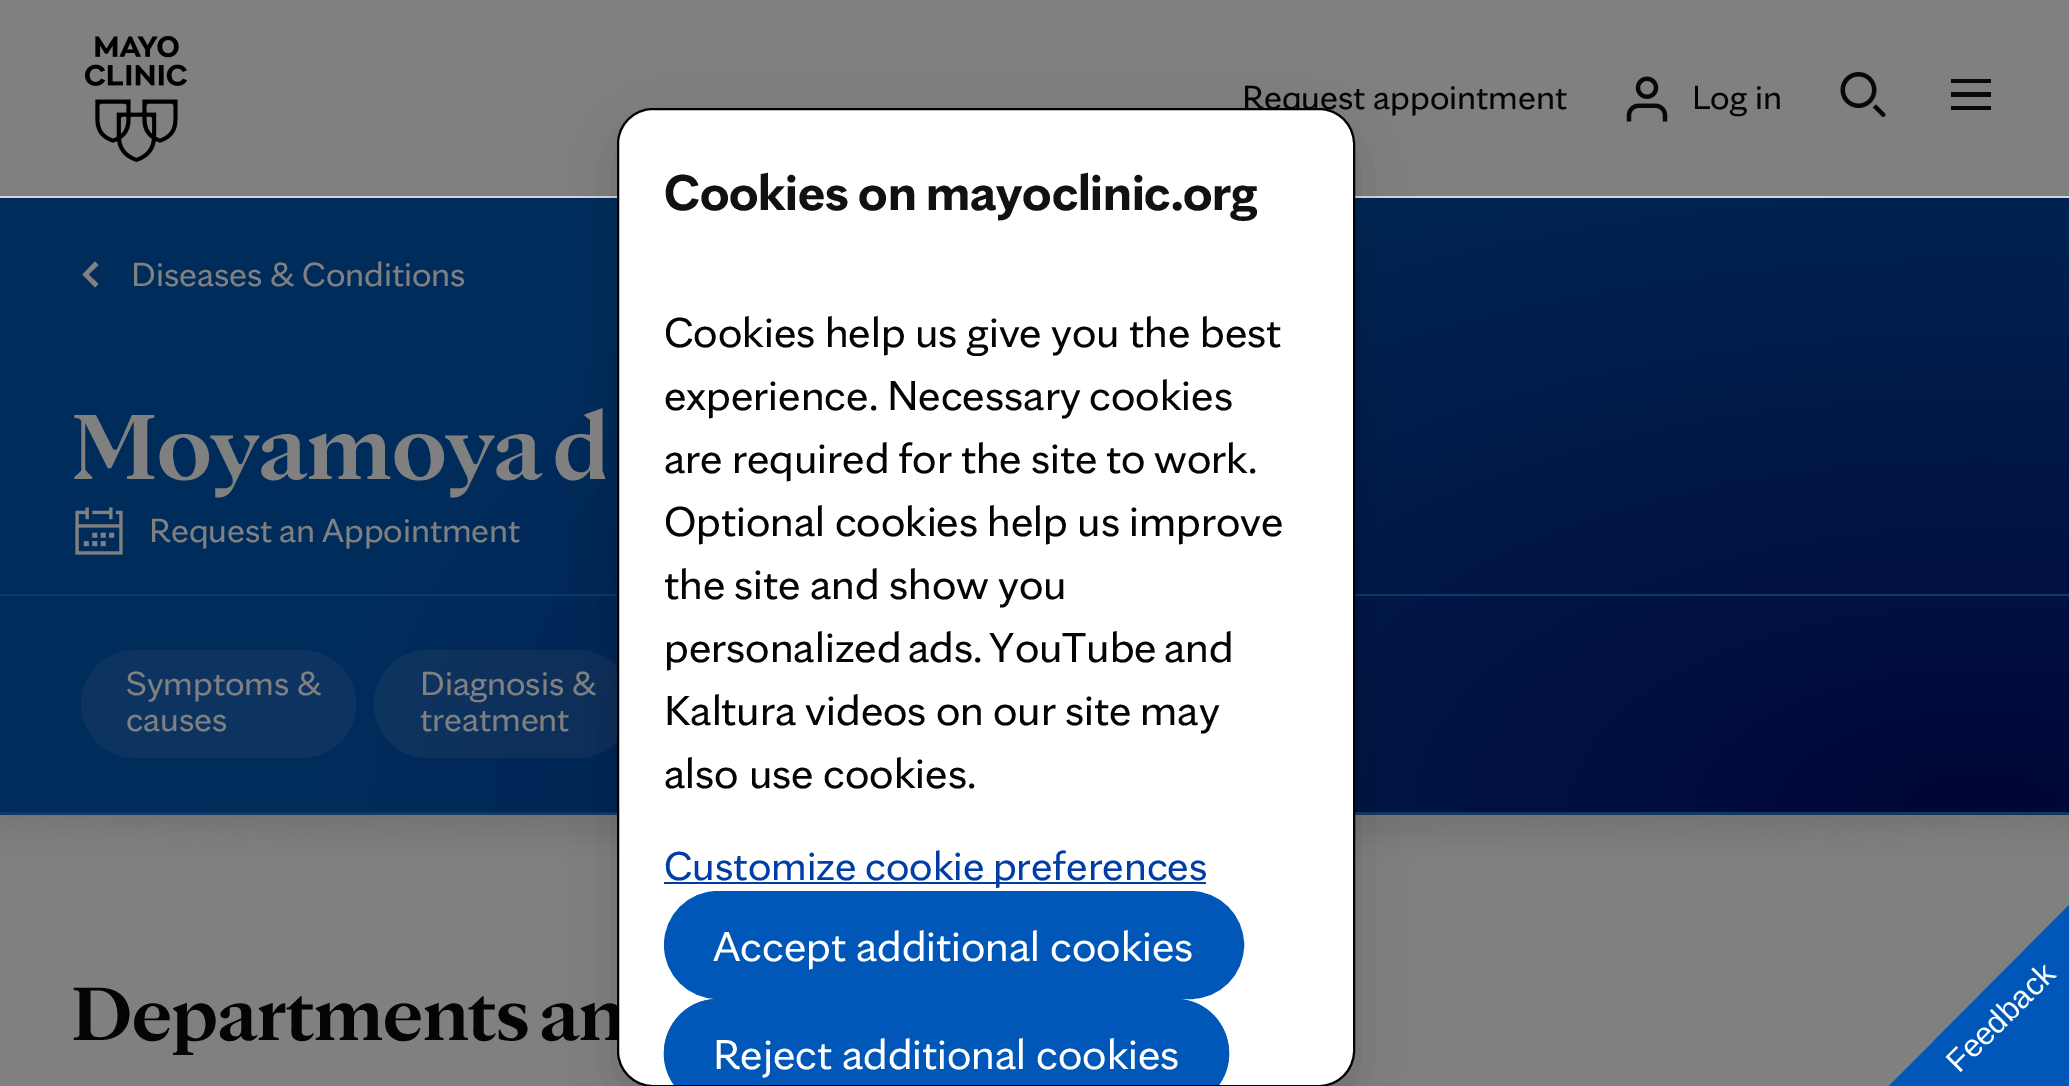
%!PS
<< /PageSize [2069 1086] /PageUsesTransparency true >> setpagedevice
/mt/moveto load def
/li/lineto load def
/ct/curveto load def
/cp/closepath load def
/fl/fill load def
/st/stroke load def
/gs/gsave load def
/gr/grestore load def
/lw/setlinewidth load def
/co { dup -16 bitshift 255 div exch dup -8 bitshift 255 and 255 div exch 255 and 255 div setrgbcolor } def
/fn { [ exch dup neg 0 0 3 -1 roll 0 0 ] selectfont } def
/tx { co fn moveto show } def
/bx { co rectfill } def
/al { dup .setfillconstantalpha .setstrokeconstantalpha } def
/rr { 5 dict begin { /r /h /w /y /x } { exch def } forall
  x r add y moveto x w add y 2 copy h add r arct x w add y h add x 1 index r arct
  x y h add x y r arct x y 2 copy exch w add exch r arct closepath end } def
/sh { 12 dict begin { /a /b /q /h /w /y /x } { exch def } forall gsave /was 0 def
  9 -2 -9 { dup b mul 4 div /e exch def 1 sub .425 mul 2.718 exch exp 1 add a .99 .min exch div /now exch def
    1 1 now sub 1 was sub div sub al /was now def
    w h .min e 2 mul add 0 gt { x e sub y e sub w e 2 mul add h e 2 mul add
      q e add b .6 mul add w h .min 2 div e add .min 0 .max rr fill } if } for grestore end } def
/im { 5 dict begin { /h /w /y /x /name } { exch def } forall
  gsave x y translate w h scale
  w h 8 [w 0 0 h 0 0] name (r) file false 3 colorimage grestore end } def
0 .pushpdf14devicefilter
0 1086 translate 1 -1 scale
4 setmiterlimit
0 0 2069 1086 16#808080 bx
0 196 2069 2 16#D6D6D6 bx
(media/1.raw) 85 36 102 126 im
(media/2.raw) 1626 76 42 46 im
(media/3.raw) 1840 72 46 45 im
1951 79 40 4 16#080808 bx
1951 92 40 5 16#080808 bx
1951 106 40 4 16#080808 bx
gs 0 198 mt 2069 198 li 2069 812 li 0 812 li cp clip newpath 1981 812 translate 1651 825 scale
<< /ShadingType 3 /ColorSpace /DeviceRGB /Coords [0 0 0 0 0 1] /Extend [true true] /Function << /FunctionType 2 /Domain [0 1] /C0 [0 .024 .212] /C1 [0 .173 .361] /N 1 >> >> shfill gr
gs 0 814 mt 2069 814 li 2069 815 li 0 815 li cp clip newpath 1981 1427 translate 1651 825 scale
<< /ShadingType 3 /ColorSpace /DeviceRGB /Coords [0 0 0 0 0 1] /Extend [true true] /Function << /FunctionType 2 /Domain [0 1] /C0 [0 .024 .212] /C1 [0 .173 .361] /N 1 >> >> shfill gr
0 812 2069 2 16#0A396B bx
16#808080 co
95 287.5 mt 82.5 274.5 li 95 261.5 li 98.5 265 li 88.5 274.5 li 98.5 284 li cp fl
(media/4.raw) 75 507 48 48 im
0 594 2069 2 16#0A396B bx
16#0D3460 co
81 650 275 108 54 rr fl
0.1 al
16#808080 co
374 650 258 108 54 rr fl
1 al
(media/5.raw) 0 814 2069 44 im
16#000000 co
617 126 738 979 36 27 .16 sh
16#0057B8 co
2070 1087 mt 1888 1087 li 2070 904 li cp fl
(Request appointment) 1242 109 /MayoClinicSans-Regular 36 16#040404 tx
(Log in) 1692 109 /MayoClinicSans-Regular 36 16#040404 tx
(Diseases & Conditions) 131 286 /MayoClinicSans-Regular 36 16#808080 tx
/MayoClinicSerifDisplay-Bold 99.5 fn
72 479 mt -6 0 32 (Moyamoya d) widthshow
/MayoClinicSans-Regular 36 fn
149 542 mt -1 0 32 (Request an Appointment) widthshow
(Symptoms &) 126 695 /MayoClinicSans-Regular 36 16#808080 tx
(causes) 126 731 /MayoClinicSans-Regular 36 16#808080 tx
(Diagnosis &) 420 695 /MayoClinicSans-Regular 36 16#808080 tx
(treatment) 420 731 /MayoClinicSans-Regular 36 16#808080 tx
/MayoClinicSerifDisplay-Bold 81.25 fn
16#040404 co
72 1040 mt -3 0 32 (Departments an) widthshow
16#FFFFFF co
618 109 736 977 35 rr gs fl gr
16#000000 co
2 lw
st
/MayoClinicSans-Bold 54 fn
16#111111 co
664 210 mt -1 0 32 (Cookies on mayoclinic.org) widthshow
/MayoClinicSans-Regular 45 fn
16#040404 co
664 347 mt -.25 0 32 (Cookies help us give you the best) widthshow
664 410 mt -1 0 32 (experience. Necessary cookies) widthshow
664 473 mt -1 0 32 (are required) widthshow
898 473 mt -1 0 32 (for the site to work.) widthshow
664 536 mt -.5 0 32 (Optional cookies help us improve) widthshow
664 599 mt -.5 0 32 (the site and show you) widthshow
664 662 mt -3 0 32 (personalized ads. YouTube and) widthshow
664 725 mt -.75 0 32 (Kaltura videos on our site may) widthshow
(also use cookies.) 664 788 /MayoClinicSans-Regular 45 16#040404 tx
664 882 542 2 16#003DA5 bx
/MayoClinicSans-Regular 43.25 fn
664 880 mt -1 0 32 (Customize cookie preferences) widthshow
16#0057B8 co
666.5 893.5 575 103 51.5 rr gs fl gr
5 lw
st
(Accept additional cookies) 713 961 /MayoClinicSans-Regular 45 16#FFFFFF tx
gs
619 110 733 975 34 rr clip newpath
16#0057B8 co
664 999 565 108 54 rr fl
gr
16#0057B8 co
718 999 mt 673 999 649 1050 674 1085 ct 681 1085 li 673 1076 669 1065 669 1053 ct 669 1026 691 1004 718 1004 ct 1175 1004 li 1202 1004 1224 1026 1224 1053 ct 1224 1065 1220 1076 1212 1085 ct 1219 1085 li 1244 1050 1220 999 1175 999 ct cp fl
(Reject additional cookies) 713 1069 /MayoClinicSans-Regular 45 16#FFFFFF tx
/LiberationSans-Regular 31.5 fn
gs 1959 1074 translate -45 rotate 0 0 mt (Feedback) show gr
.poppdf14devicefilter showpage
